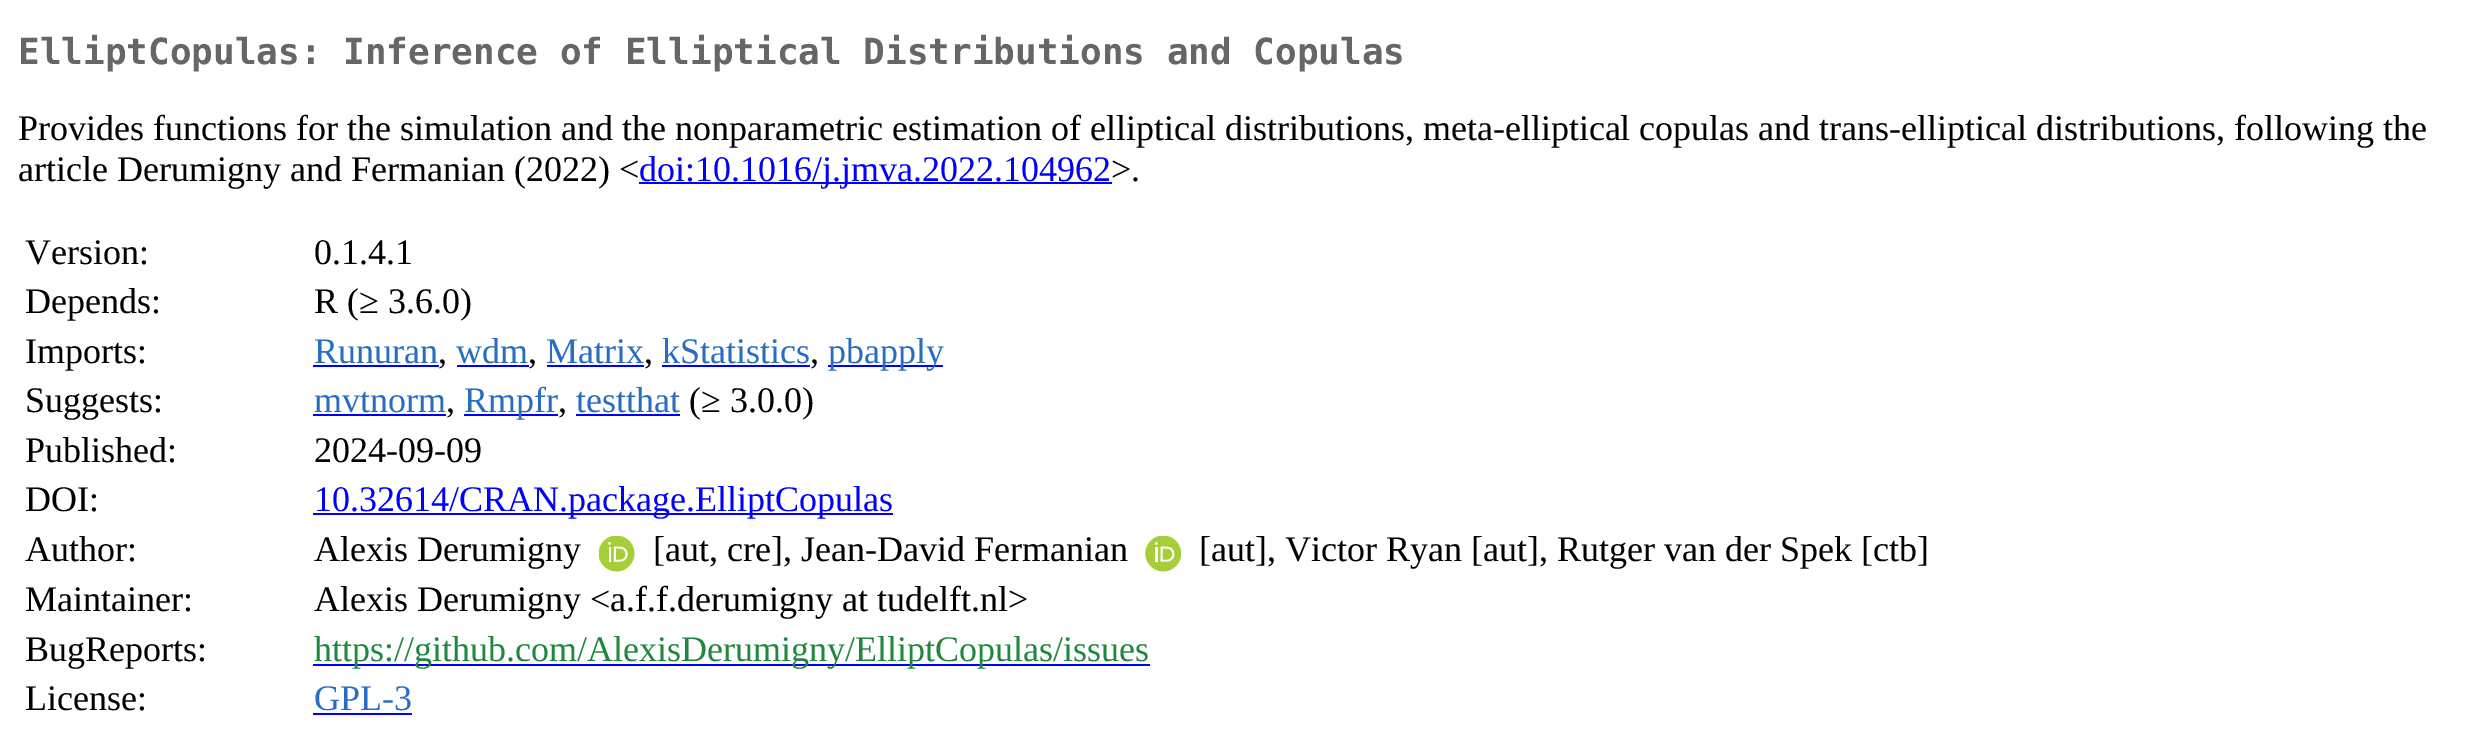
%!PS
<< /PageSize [2491 742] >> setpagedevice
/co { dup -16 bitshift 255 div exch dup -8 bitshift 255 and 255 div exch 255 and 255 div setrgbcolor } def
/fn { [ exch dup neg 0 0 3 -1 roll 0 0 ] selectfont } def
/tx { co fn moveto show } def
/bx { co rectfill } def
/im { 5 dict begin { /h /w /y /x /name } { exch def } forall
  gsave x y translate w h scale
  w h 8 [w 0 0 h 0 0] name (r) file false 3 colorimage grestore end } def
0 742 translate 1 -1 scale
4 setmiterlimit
0 0 2491 742 16#FFFFFF bx
639 182 473 2 16#0000FF bx
313 365 126 2 16#0000FF bx
457 365 72 2 16#0000FF bx
547 365 97 2 16#0000FF bx
662 365 148 2 16#0000FF bx
828 365 115 2 16#0000FF bx
313 414 133 2 16#0000FF bx
464 414 94 2 16#0000FF bx
576 414 104 2 16#0000FF bx
313 513 580 2 16#0000FF bx
(media/1.raw) 599 536 36 36 im
(media/2.raw) 1145 536 36 36 im
313 664 837 2 16#0000FF bx
313 713 99 2 16#0000FF bx
(ElliptCopulas: Inference of Elliptical Distributions and Copulas) 18 64 /DejaVuSansMono-Bold 36 16#666666 tx
(Provides functions for the simulation and the nonparametric estimation of elliptical distributions, meta-elliptical copulas and trans-elliptical distributions, following the) 18 140 /LiberationSerif-Regular 36 16#000000 tx
(article Derumigny and Fermanian \(2022\) <) 18 181 /LiberationSerif-Regular 36 16#000000 tx
(doi:10.1016/j.jmva.2022.104962) 639 181 /LiberationSerif-Regular 36 16#0000FF tx
(>.) 1111 181 /LiberationSerif-Regular 36 16#000000 tx
(Version:) 25 264 /LiberationSerif-Regular 36 16#000000 tx
(0.1.4.1) 314 264 /LiberationSerif-Regular 36 16#000000 tx
(Depends:) 25 313 /LiberationSerif-Regular 36 16#000000 tx
(R \(≥ 3.6.0\)) 314 313 /LiberationSerif-Regular 36 16#000000 tx
(Imports:) 25 363 /LiberationSerif-Regular 36 16#000000 tx
(Runuran) 314 363 /LiberationSerif-Regular 36 16#276DC3 tx
(,) 438 363 /LiberationSerif-Regular 36 16#000000 tx
(wdm) 456 363 /LiberationSerif-Regular 36 16#276DC3 tx
(,) 528 363 /LiberationSerif-Regular 36 16#000000 tx
(Matrix) 546 363 /LiberationSerif-Regular 36 16#276DC3 tx
(,) 644 363 /LiberationSerif-Regular 36 16#000000 tx
(kStatistics) 662 363 /LiberationSerif-Regular 36 16#276DC3 tx
(,) 810 363 /LiberationSerif-Regular 36 16#000000 tx
(pbapply) 828 363 /LiberationSerif-Regular 36 16#276DC3 tx
(Suggests:) 25 412 /LiberationSerif-Regular 36 16#000000 tx
(mvtnorm) 314 412 /LiberationSerif-Regular 36 16#276DC3 tx
(,) 446 412 /LiberationSerif-Regular 36 16#000000 tx
(Rmpfr) 464 412 /LiberationSerif-Regular 36 16#276DC3 tx
(,) 558 412 /LiberationSerif-Regular 36 16#000000 tx
(testthat) 576 412 /LiberationSerif-Regular 36 16#276DC3 tx
(\(≥ 3.0.0\)) 689 412 /LiberationSerif-Regular 36 16#000000 tx
(Published:) 25 462 /LiberationSerif-Regular 36 16#000000 tx
(2024-09-09) 314 462 /LiberationSerif-Regular 36 16#000000 tx
(DOI:) 25 511 /LiberationSerif-Regular 36 16#000000 tx
(10.32614/CRAN.package.ElliptCopulas) 314 511 /LiberationSerif-Regular 36 16#0000FF tx
(Author:) 25 561 /LiberationSerif-Regular 36 16#000000 tx
(Alexis Derumigny) 314 561 /LiberationSerif-Regular 36 16#000000 tx
([aut, cre], Jean-David Fermanian) 653 561 /LiberationSerif-Regular 36 16#000000 tx
([aut], Victor Ryan [aut], Rutger van der Spek [ctb]) 1199 561 /LiberationSerif-Regular 36 16#000000 tx
(Maintainer:) 25 611 /LiberationSerif-Regular 36 16#000000 tx
(Alexis Derumigny <a.f.f.derumigny at tudelft.nl>) 314 611 /LiberationSerif-Regular 36 16#000000 tx
(BugReports:) 25 661 /LiberationSerif-Regular 36 16#000000 tx
(https://github.com/AlexisDerumigny/ElliptCopulas/issues) 314 661 /LiberationSerif-Regular 36 16#1F883D tx
(License:) 25 710 /LiberationSerif-Regular 36 16#000000 tx
(GPL-3) 314 710 /LiberationSerif-Regular 36 16#276DC3 tx
showpage
